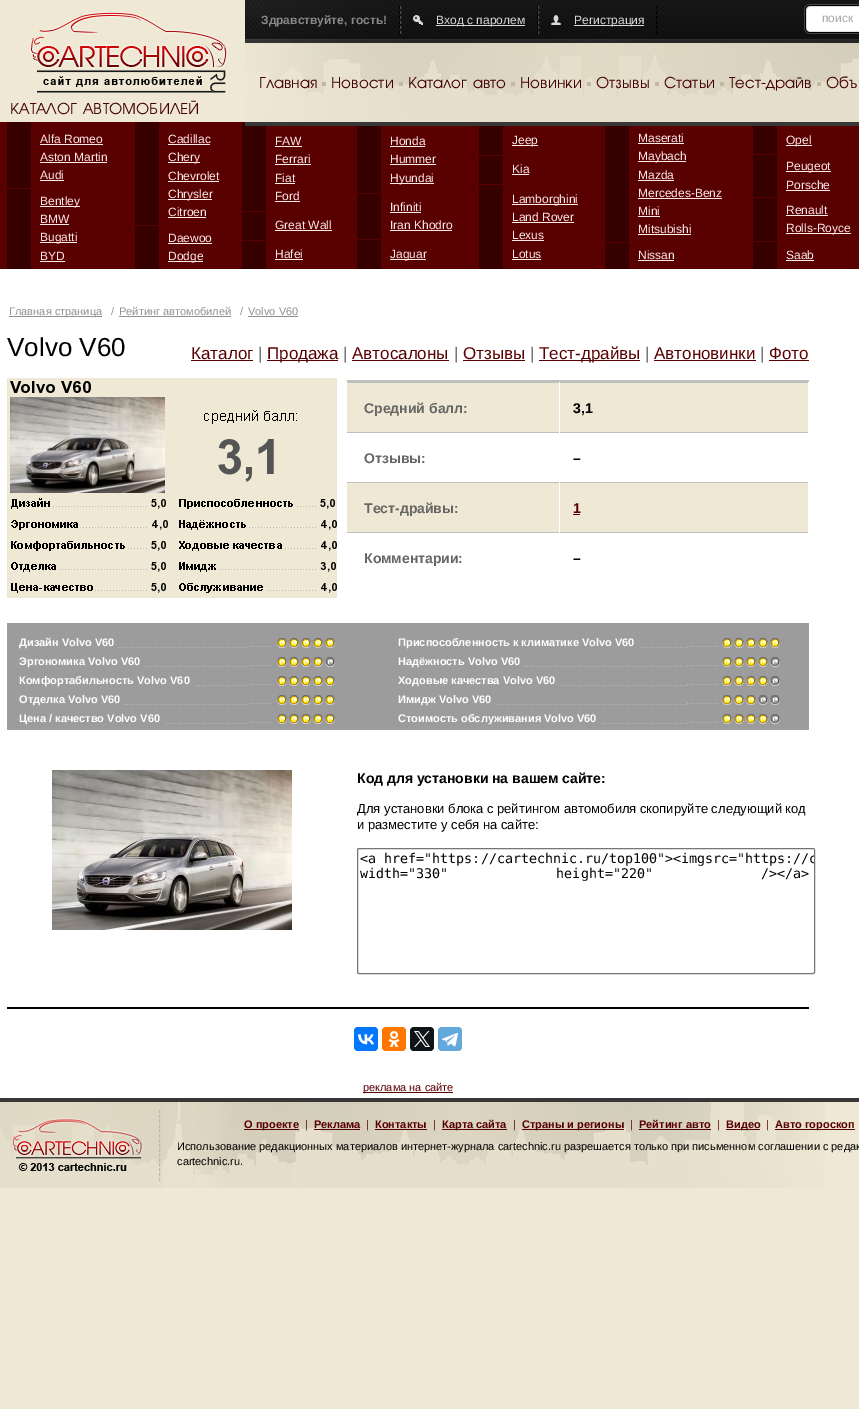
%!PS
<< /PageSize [859 1409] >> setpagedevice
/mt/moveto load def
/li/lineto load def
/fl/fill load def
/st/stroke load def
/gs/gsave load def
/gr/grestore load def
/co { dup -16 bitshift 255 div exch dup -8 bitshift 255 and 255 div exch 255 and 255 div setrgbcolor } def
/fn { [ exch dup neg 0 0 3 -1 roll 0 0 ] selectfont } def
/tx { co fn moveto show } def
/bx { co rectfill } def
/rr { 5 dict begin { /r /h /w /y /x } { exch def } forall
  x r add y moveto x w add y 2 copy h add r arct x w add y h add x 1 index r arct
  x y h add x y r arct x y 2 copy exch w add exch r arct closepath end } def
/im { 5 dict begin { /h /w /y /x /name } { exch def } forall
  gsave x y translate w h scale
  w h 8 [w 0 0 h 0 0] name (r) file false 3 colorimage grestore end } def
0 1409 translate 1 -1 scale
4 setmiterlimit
0 0 859 1409 16#EEE8D4 bx
(media/1.raw) 245 0 614 122 im
16#000000 co
[3 2] 0 setdash
399.5 6 mt 399.5 34 li st
537.5 6 mt 537.5 34 li st
16#4E4E4D co
400.5 6 mt 400.5 34 li st
(media/2.raw) 413 15 10 10 im
436 25 89 1 16#D8D8D8 bx
16#000000 co
656.5 6 mt 656.5 34 li st
16#4E4E4D co
538.5 6 mt 538.5 34 li st
(media/3.raw) 551 15 10 10 im
574 25 70 1 16#D8D8D8 bx
(media/4.raw) 804 4 55 30 im
322 82 4 4 16#C0B9A0 bx
399 82 4 4 16#C0B9A0 bx
511 82 4 4 16#C0B9A0 bx
587 82 4 4 16#C0B9A0 bx
655 82 4 4 16#C0B9A0 bx
720 82 4 4 16#C0B9A0 bx
817 82 4 4 16#C0B9A0 bx
(media/5.raw) 29 11 199 82 im
0 122 859 147 16#590000 bx
242 122 24 147 16#370000 bx
245 122 614 4 16#373737 bx
7 122 24 147 16#370000 bx
40 144 63 1 16#FCE9E9 bx
40 162 67 1 16#FCE9E9 bx
40 180 24 1 16#FCE9E9 bx
7 188 24 1 16#590000 bx
40 206 40 1 16#FCE9E9 bx
40 224 29 1 16#FCE9E9 bx
40 242 37 1 16#FCE9E9 bx
40 261 25 1 16#FCE9E9 bx
135 122 24 147 16#370000 bx
168 144 42 1 16#FCE9E9 bx
168 162 32 1 16#FCE9E9 bx
168 181 51 1 16#FCE9E9 bx
168 199 44 1 16#FCE9E9 bx
168 217 38 1 16#FCE9E9 bx
135 225 24 1 16#590000 bx
168 243 44 1 16#FCE9E9 bx
168 261 35 1 16#FCE9E9 bx
275 146 27 1 16#FCE9E9 bx
275 164 36 1 16#FCE9E9 bx
275 183 20 1 16#FCE9E9 bx
275 201 25 1 16#FCE9E9 bx
242 211 24 1 16#590000 bx
275 230 57 1 16#FCE9E9 bx
242 240 24 1 16#590000 bx
275 259 28 1 16#FCE9E9 bx
357 126 24 143 16#370000 bx
390 146 35 1 16#FCE9E9 bx
390 164 46 1 16#FCE9E9 bx
390 183 44 1 16#FCE9E9 bx
357 193 24 1 16#590000 bx
390 212 31 1 16#FCE9E9 bx
390 230 62 1 16#FCE9E9 bx
357 239 24 1 16#590000 bx
390 259 36 1 16#FCE9E9 bx
479 126 24 143 16#370000 bx
512 145 26 1 16#FCE9E9 bx
479 155 24 1 16#590000 bx
512 174 17 1 16#FCE9E9 bx
479 184 24 1 16#590000 bx
512 204 66 1 16#FCE9E9 bx
512 222 62 1 16#FCE9E9 bx
512 240 32 1 16#FCE9E9 bx
512 259 29 1 16#FCE9E9 bx
605 126 24 143 16#370000 bx
638 143 46 1 16#FCE9E9 bx
638 161 48 1 16#FCE9E9 bx
638 180 36 1 16#FCE9E9 bx
638 198 84 1 16#FCE9E9 bx
638 216 22 1 16#FCE9E9 bx
638 234 53 1 16#FCE9E9 bx
605 242 24 1 16#590000 bx
638 260 36 1 16#FCE9E9 bx
753 126 24 143 16#370000 bx
786 145 26 1 16#FCE9E9 bx
753 154 24 1 16#590000 bx
786 171 45 1 16#FCE9E9 bx
786 190 44 1 16#FCE9E9 bx
753 197 24 1 16#590000 bx
786 215 42 1 16#FCE9E9 bx
786 233 65 1 16#FCE9E9 bx
753 241 24 1 16#590000 bx
786 260 28 1 16#FCE9E9 bx
0 269 859 829 16#FFFFFF bx
9 316 93 1 16#919191 bx
119 316 112 1 16#919191 bx
248 316 50 1 16#919191 bx
191 360 62 1 16#590000 bx
267 360 71 1 16#590000 bx
352 360 97 1 16#590000 bx
463 360 62 1 16#590000 bx
539 360 101 1 16#590000 bx
654 360 102 1 16#590000 bx
769 360 40 1 16#590000 bx
7 1007 802 2 16#000000 bx
(media/6.raw) 7 378 330 220 im
347 380 462 2 16#BFBFBF bx
347 383 212 49 16#EEE8D4 bx
347 382 462 1 16#BFBFBF bx
559 382 1 1 16#FFFFFF bx
560 383 248 49 16#EEE8D4 bx
808 382 1 1 16#FFFFFF bx
347 432 462 1 16#BFBFBF bx
559 432 1 1 16#FFFFFF bx
808 432 1 1 16#FFFFFF bx
347 483 212 49 16#EEE8D4 bx
347 482 462 1 16#BFBFBF bx
559 482 1 1 16#FFFFFF bx
560 483 248 49 16#EEE8D4 bx
808 482 1 1 16#FFFFFF bx
573 514 7 1 16#590000 bx
347 532 462 1 16#BFBFBF bx
559 532 1 1 16#FFFFFF bx
808 532 1 1 16#FFFFFF bx
7 623 802 107 16#9C9C9C bx
(media/7.raw) 118 647 130 1 im
(media/8.raw) 250 646 22 1 im
(media/9.raw) 277 638 58 10 im
(media/10.raw) 145 666 103 1 im
(media/8.raw) 250 665 22 1 im
(media/11.raw) 277 657 58 10 im
(media/12.raw) 196 685 52 1 im
(media/8.raw) 250 684 22 1 im
(media/9.raw) 277 676 58 10 im
(media/13.raw) 124 704 124 1 im
(media/8.raw) 250 703 22 1 im
(media/9.raw) 277 695 58 10 im
(media/14.raw) 166 723 82 1 im
(media/8.raw) 250 722 22 1 im
(media/9.raw) 277 714 58 10 im
(media/15.raw) 641 647 46 1 im
(media/16.raw) 687 646 31 1 im
(media/9.raw) 722 638 58 10 im
(media/17.raw) 524 666 163 1 im
(media/16.raw) 687 665 31 1 im
(media/11.raw) 722 657 58 10 im
(media/18.raw) 560 685 127 1 im
(media/16.raw) 687 684 31 1 im
(media/11.raw) 722 676 58 10 im
(media/19.raw) 497 704 190 1 im
(media/16.raw) 687 703 31 1 im
(media/20.raw) 722 695 58 10 im
(media/21.raw) 602 723 85 1 im
(media/16.raw) 687 722 31 1 im
(media/11.raw) 722 714 58 10 im
(media/22.raw) 52 770 240 160 im
16#767676 co
[] 0 setdash
357.5 848.5 457 125 1.5 rr st
16#0077FF co
354 1027 24 24 4 rr fl
(media/23.raw) 358 1034 16 11 im
16#FF7700 co
382 1027 24 24 4 rr fl
(media/24.raw) 388 1031 12 16 im
16#0F1419 co
410 1027 24 24 4 rr fl
(media/25.raw) 414 1031 16 16 im
16#64A9DC co
438 1027 24 24 4 rr fl
(media/26.raw) 442 1033 16 14 im
363 1092 90 1 16#590000 bx
(media/27.raw) 0 1102 825 86 im
0 1098 859 4 16#373737 bx
16#C0B9A0 co
[3 1.86] 0 setdash
159.5 1110 mt 159.5 1181 li st
(media/28.raw) 11 1118 133 53 im
244 1129 55 1 16#590000 bx
314 1129 46 1 16#590000 bx
375 1129 52 1 16#590000 bx
442 1129 65 1 16#590000 bx
522 1129 102 1 16#590000 bx
639 1129 72 1 16#590000 bx
726 1129 34 1 16#590000 bx
775 1129 80 1 16#590000 bx
(Здравствуйте, гость!) 261 24 /LiberationSans-Bold 12 16#888888 tx
(Вход с паролем) 436 24 /LiberationSans-Regular 12 16#D8D8D8 tx
(Регистрация) 574 24 /LiberationSans-Regular 12 16#D8D8D8 tx
(поиск) 822 22 /LiberationSans-Regular 12 16#A9A9A9 tx
(Главная) 259 88 /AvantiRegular-Regular 15 16#440202 tx
(Новости) 331 88 /AvantiRegular-Regular 15 16#440202 tx
(Каталог авто) 408 88 /AvantiRegular-Regular 15 16#440202 tx
(Новинки) 520 88 /AvantiRegular-Regular 15 16#440202 tx
(Отзывы) 596 88 /AvantiRegular-Regular 15 16#440202 tx
(Статьи) 664 88 /AvantiRegular-Regular 15 16#440202 tx
(Тест-драйв) 729 88 /AvantiRegular-Regular 15 16#440202 tx
(Объ) 826 88 /AvantiRegular-Regular 15 16#440202 tx
(КАТАЛОГ АВТОМОБИЛЕЙ) 10 114 /AvantiRegular-Regular 15 16#440202 tx
(Alfa Romeo) 40 143 /LiberationSans-Regular 12 16#FCE9E9 tx
(Aston Martin) 40 161 /LiberationSans-Regular 12 16#FCE9E9 tx
(Audi) 40 179 /LiberationSans-Regular 12 16#FCE9E9 tx
(Bentley) 40 205 /LiberationSans-Regular 12 16#FCE9E9 tx
(BMW) 40 223 /LiberationSans-Regular 12 16#FCE9E9 tx
(Bugatti) 40 241 /LiberationSans-Regular 12 16#FCE9E9 tx
(BYD) 40 260 /LiberationSans-Regular 12 16#FCE9E9 tx
(Cadillac) 168 143 /LiberationSans-Regular 12 16#FCE9E9 tx
(Chery) 168 161 /LiberationSans-Regular 12 16#FCE9E9 tx
(Chevrolet) 168 180 /LiberationSans-Regular 12 16#FCE9E9 tx
(Chrysler) 168 198 /LiberationSans-Regular 12 16#FCE9E9 tx
(Citroen) 168 216 /LiberationSans-Regular 12 16#FCE9E9 tx
(Daewoo) 168 242 /LiberationSans-Regular 12 16#FCE9E9 tx
(Dodge) 168 260 /LiberationSans-Regular 12 16#FCE9E9 tx
(FAW) 275 145 /LiberationSans-Regular 12 16#FCE9E9 tx
(Ferrari) 275 163 /LiberationSans-Regular 12 16#FCE9E9 tx
(Fiat) 275 182 /LiberationSans-Regular 12 16#FCE9E9 tx
(Ford) 275 200 /LiberationSans-Regular 12 16#FCE9E9 tx
(Great Wall) 275 229 /LiberationSans-Regular 12 16#FCE9E9 tx
(Hafei) 275 258 /LiberationSans-Regular 12 16#FCE9E9 tx
(Honda) 390 145 /LiberationSans-Regular 12 16#FCE9E9 tx
(Hummer) 390 163 /LiberationSans-Regular 12 16#FCE9E9 tx
(Hyundai) 390 182 /LiberationSans-Regular 12 16#FCE9E9 tx
(Infiniti) 390 211 /LiberationSans-Regular 12 16#FCE9E9 tx
(Iran Khodro) 390 229 /LiberationSans-Regular 12 16#FCE9E9 tx
(Jaguar) 390 258 /LiberationSans-Regular 12 16#FCE9E9 tx
(Jeep) 512 144 /LiberationSans-Regular 12 16#FCE9E9 tx
(Kia) 512 173 /LiberationSans-Regular 12 16#FCE9E9 tx
(Lamborghini) 512 203 /LiberationSans-Regular 12 16#FCE9E9 tx
(Land Rover) 512 221 /LiberationSans-Regular 12 16#FCE9E9 tx
(Lexus) 512 239 /LiberationSans-Regular 12 16#FCE9E9 tx
(Lotus) 512 258 /LiberationSans-Regular 12 16#FCE9E9 tx
(Maserati) 638 142 /LiberationSans-Regular 12 16#FCE9E9 tx
(Maybach) 638 160 /LiberationSans-Regular 12 16#FCE9E9 tx
(Mazda) 638 179 /LiberationSans-Regular 12 16#FCE9E9 tx
(Mercedes-Benz) 638 197 /LiberationSans-Regular 12 16#FCE9E9 tx
(Mini) 638 215 /LiberationSans-Regular 12 16#FCE9E9 tx
(Mitsubishi) 638 233 /LiberationSans-Regular 12 16#FCE9E9 tx
(Nissan) 638 259 /LiberationSans-Regular 12 16#FCE9E9 tx
(Opel) 786 144 /LiberationSans-Regular 12 16#FCE9E9 tx
(Peugeot) 786 170 /LiberationSans-Regular 12 16#FCE9E9 tx
(Porsche) 786 189 /LiberationSans-Regular 12 16#FCE9E9 tx
(Renault) 786 214 /LiberationSans-Regular 12 16#FCE9E9 tx
(Rolls-Royce) 786 232 /LiberationSans-Regular 12 16#FCE9E9 tx
(Saab) 786 259 /LiberationSans-Regular 12 16#FCE9E9 tx
(Главная страница) 9 315 /LiberationSans-Regular 11 16#919191 tx
(/) 111 315 /LiberationSans-Regular 11 16#919191 tx
(Рейтинг автомобилей) 119 315 /LiberationSans-Regular 11 16#919191 tx
(/) 240 315 /LiberationSans-Regular 11 16#919191 tx
(Volvo V60) 248 315 /LiberationSans-Regular 11 16#919191 tx
(Volvo V60) 7 356 /LiberationSans-Regular 26 16#000000 tx
(Каталог) 191 359 /LiberationSans-Regular 17 16#590000 tx
(|) 258 359 /LiberationSans-Regular 17 16#787878 tx
(Продажа) 267 359 /LiberationSans-Regular 17 16#590000 tx
(|) 343 359 /LiberationSans-Regular 17 16#787878 tx
(Автосалоны) 352 359 /LiberationSans-Regular 17 16#590000 tx
(|) 454 359 /LiberationSans-Regular 17 16#787878 tx
(Отзывы) 463 359 /LiberationSans-Regular 17 16#590000 tx
(|) 530 359 /LiberationSans-Regular 17 16#787878 tx
(Тест-драйвы) 539 359 /LiberationSans-Regular 17 16#590000 tx
(|) 645 359 /LiberationSans-Regular 17 16#787878 tx
(Автоновинки) 654 359 /LiberationSans-Regular 17 16#590000 tx
(|) 760 359 /LiberationSans-Regular 17 16#787878 tx
(Фото) 769 359 /LiberationSans-Regular 17 16#590000 tx
(Средний балл:) 364 413 /LiberationSans-Bold 14 16#666666 tx
(3,1) 573 413 /LiberationSans-Bold 14 16#000000 tx
(Отзывы:) 364 463 /LiberationSans-Bold 14 16#666666 tx
(–) 573 463 /LiberationSans-Bold 14 16#000000 tx
(Тест-драйвы:) 364 513 /LiberationSans-Bold 14 16#666666 tx
(1) 573 513 /LiberationSans-Bold 14 16#590000 tx
(Комментарии:) 364 563 /LiberationSans-Bold 14 16#666666 tx
(–) 573 563 /LiberationSans-Bold 14 16#000000 tx
(Дизайн Volvo V60) 19 646 /LiberationSans-Bold 11 16#FFFFFF tx
(Эргономика Volvo V60) 19 665 /LiberationSans-Bold 11 16#FFFFFF tx
(Комфортабильность Volvo V60) 19 684 /LiberationSans-Bold 11 16#FFFFFF tx
(Отделка Volvo V60) 19 703 /LiberationSans-Bold 11 16#FFFFFF tx
(Цена / качество Volvo V60) 19 722 /LiberationSans-Bold 11 16#FFFFFF tx
(Приспособленность к климатике Volvo V60) 398 646 /LiberationSans-Bold 11 16#FFFFFF tx
(Надёжность Volvo V60) 398 665 /LiberationSans-Bold 11 16#FFFFFF tx
(Ходовые качества Volvo V60) 398 684 /LiberationSans-Bold 11 16#FFFFFF tx
(Имидж Volvo V60) 398 703 /LiberationSans-Bold 11 16#FFFFFF tx
(Стоимость обслуживания Volvo V60) 398 722 /LiberationSans-Bold 11 16#FFFFFF tx
(Код для установки на вашем сайте:) 357 783 /LiberationSans-Bold 14 16#000000 tx
(Для установки блока с рейтингом автомобиля скопируйте следующий код) 357 813 /LiberationSans-Regular 13 16#000000 tx
(и разместите у себя на сайте:) 357 829 /LiberationSans-Regular 13 16#000000 tx
(<a href="https://cartechnic.ru/top100"><img) 360 863 /DejaVuSansMono-Regular 13.35 16#000000 tx
gs
358 849 456 124 rectclip
(src="https://c) 705 863 /DejaVuSansMono-Regular 13.35 16#000000 tx
gr
360 878 mt 100 0 32 (width="330" height="220" /></a>) widthshow
(реклама на сайте) 363 1091 /LiberationSans-Regular 11 16#590000 tx
(О проекте) 244 1128 /LiberationSans-Bold 11 16#590000 tx
(|) 305 1128 /LiberationSans-Regular 11 16#590000 tx
(Реклама) 314 1128 /LiberationSans-Bold 11 16#590000 tx
(|) 366 1128 /LiberationSans-Regular 11 16#590000 tx
(Контакты) 375 1128 /LiberationSans-Bold 11 16#590000 tx
(|) 433 1128 /LiberationSans-Regular 11 16#590000 tx
(Карта сайта) 442 1128 /LiberationSans-Bold 11 16#590000 tx
(|) 513 1128 /LiberationSans-Regular 11 16#590000 tx
(Страны и регионы) 522 1128 /LiberationSans-Bold 11 16#590000 tx
(|) 630 1128 /LiberationSans-Regular 11 16#590000 tx
(Рейтинг авто) 639 1128 /LiberationSans-Bold 11 16#590000 tx
(|) 717 1128 /LiberationSans-Regular 11 16#590000 tx
(Видео) 726 1128 /LiberationSans-Bold 11 16#590000 tx
(|) 766 1128 /LiberationSans-Regular 11 16#590000 tx
(Авто гороскоп) 775 1128 /LiberationSans-Bold 11 16#590000 tx
(Использование редакционных материалов интернет-журнала cartechnic.ru разрешается только при письменном соглашении с редак) 177 1150 /LiberationSans-Regular 11 16#000000 tx
(cartechnic.ru.) 177 1165 /LiberationSans-Regular 11 16#000000 tx
showpage
